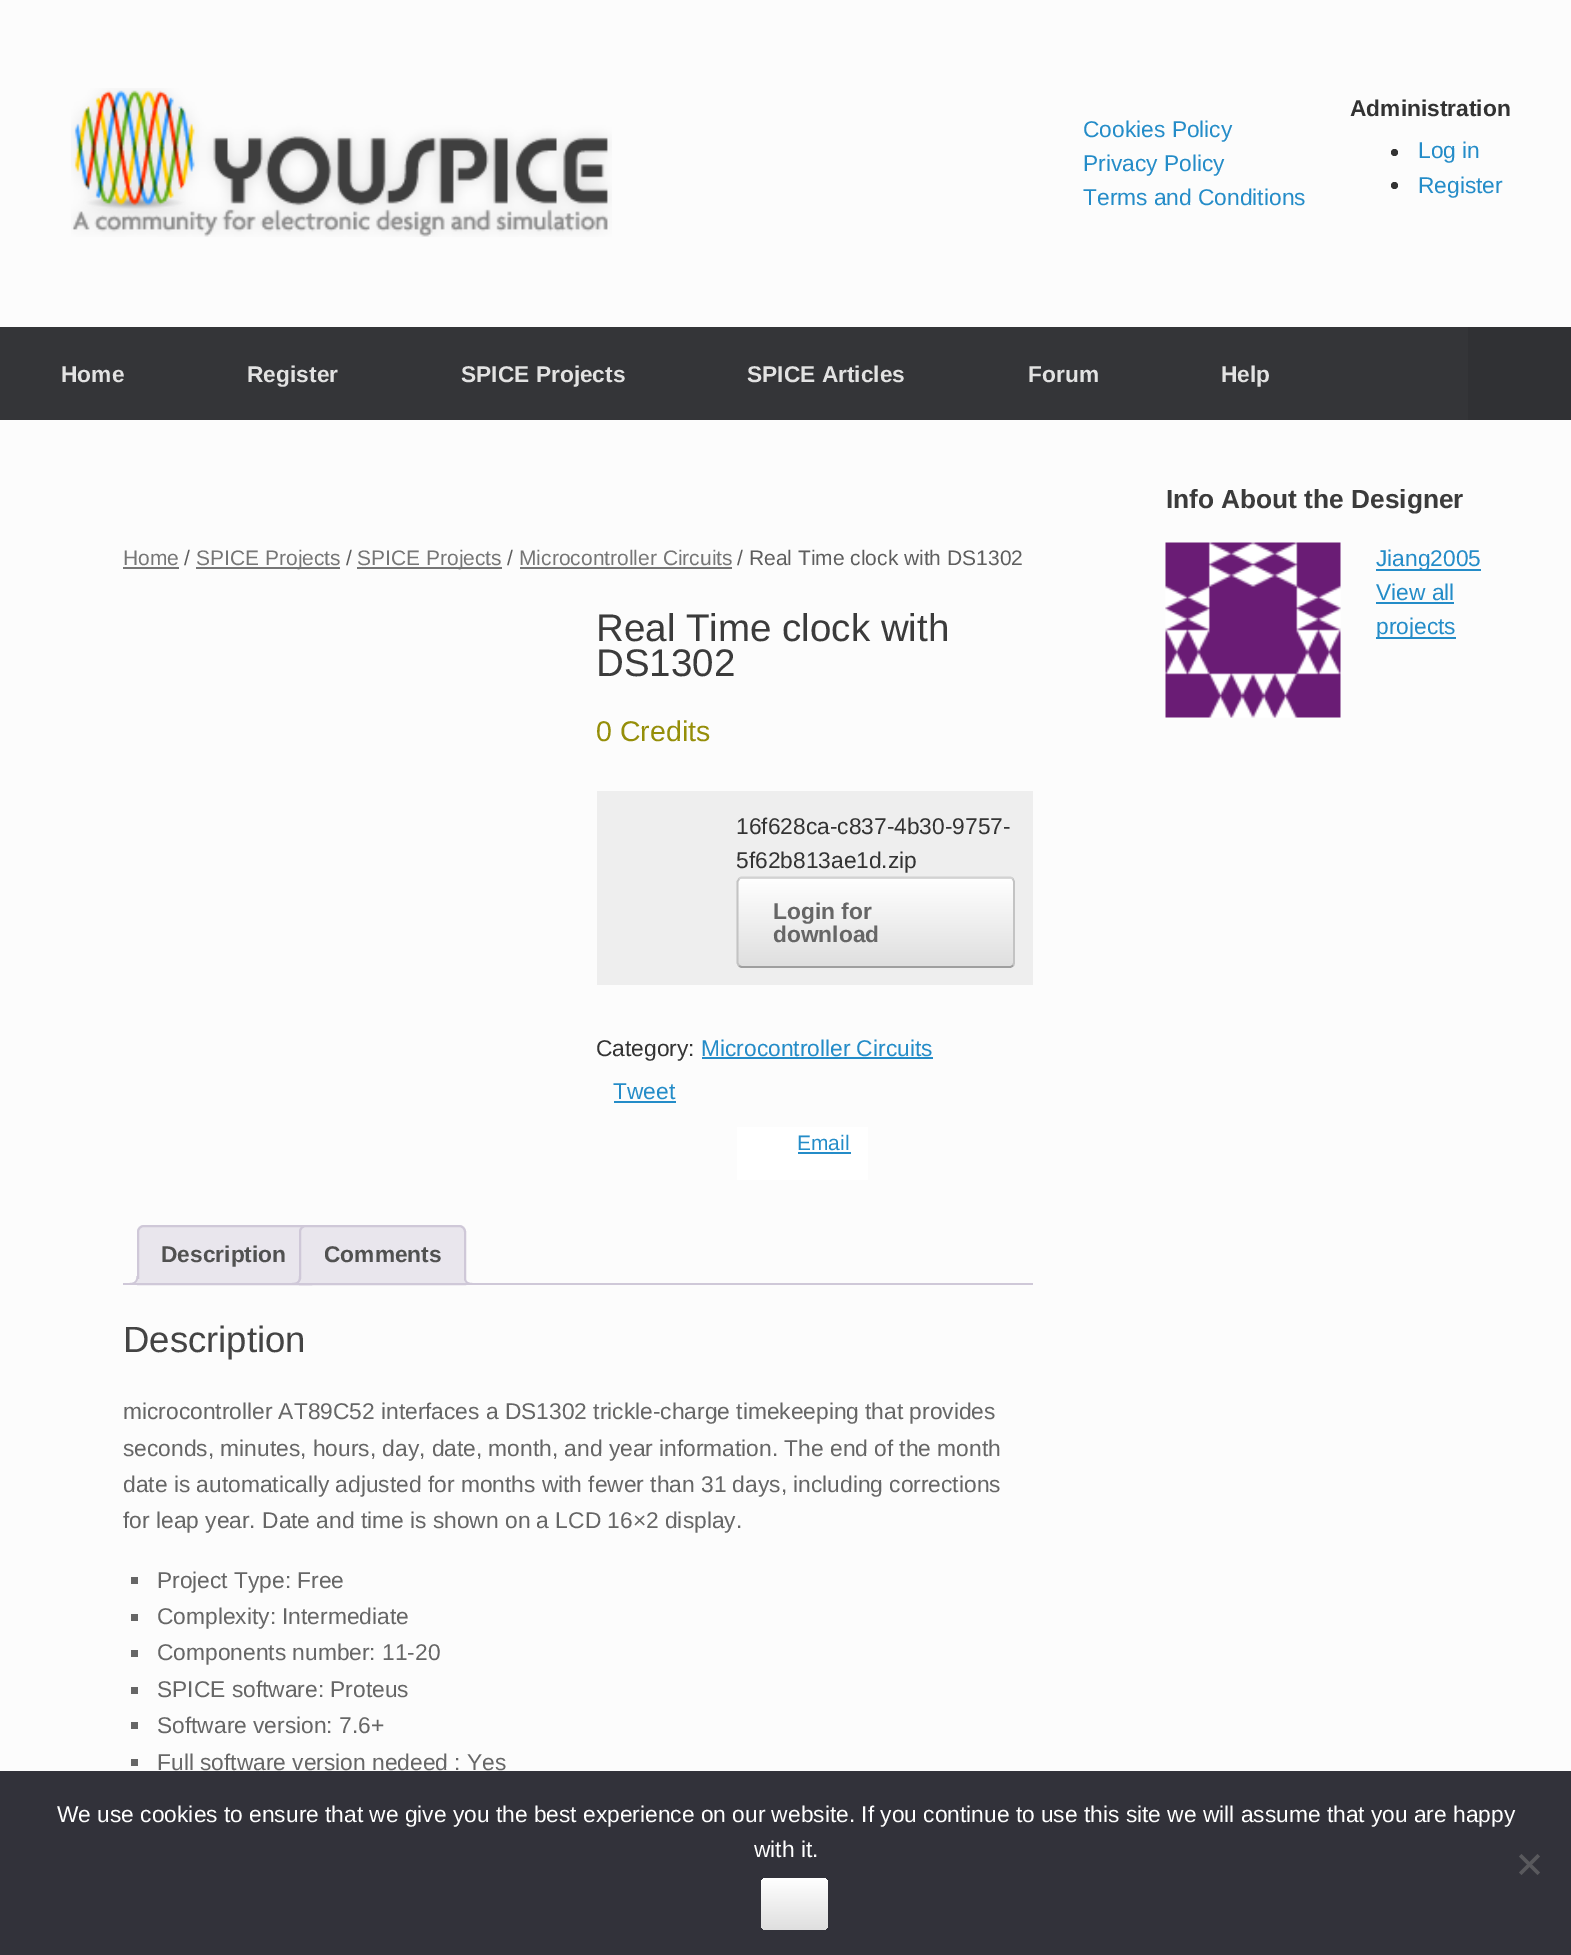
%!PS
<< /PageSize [1571 1955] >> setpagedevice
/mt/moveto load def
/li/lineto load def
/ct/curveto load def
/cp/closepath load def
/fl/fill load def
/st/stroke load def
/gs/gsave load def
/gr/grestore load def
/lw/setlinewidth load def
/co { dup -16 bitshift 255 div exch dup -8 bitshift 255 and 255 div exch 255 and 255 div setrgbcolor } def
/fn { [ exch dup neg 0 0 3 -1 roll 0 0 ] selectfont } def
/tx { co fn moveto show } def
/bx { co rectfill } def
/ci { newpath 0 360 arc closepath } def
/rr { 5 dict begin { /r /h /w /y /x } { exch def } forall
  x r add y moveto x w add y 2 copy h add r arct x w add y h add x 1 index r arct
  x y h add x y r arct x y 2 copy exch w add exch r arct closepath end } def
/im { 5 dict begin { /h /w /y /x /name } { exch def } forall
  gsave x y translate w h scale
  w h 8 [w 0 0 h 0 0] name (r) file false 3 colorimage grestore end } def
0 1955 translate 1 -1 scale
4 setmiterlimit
0 0 1571 1955 16#FCFCFC bx
(media/1.raw) 71 88 541 149 im
16#333333 co
1394.5 152.5 3.5 ci fl
1394.5 185.5 3.5 ci fl
0 327 1468 93 16#343538 bx
1468 327 103 93 16#303134 bx
123 567 56 2 16#767676 bx
196 567 144 2 16#767676 bx
357 567 145 2 16#767676 bx
520 567 212 2 16#767676 bx
597 791 436 194 16#EEEEEE bx
gs
737 877 278 91 5 rr clip newpath
gs 737 877 mt 1015 877 li 1015 879 li 737 879 li cp clip newpath
<< /ShadingType 2 /ColorSpace /DeviceRGB /Coords [739 879 739 791] /Extend [true true] /Function << /FunctionType 2 /Domain [0 1] /C0 [.875 .875 .875] /C1 [1 1 1] /N 1 >> >> shfill gr
gs 737 879 mt 1015 879 li 1015 966 li 737 966 li cp clip newpath
<< /ShadingType 2 /ColorSpace /DeviceRGB /Coords [739 966 739 879] /Extend [true true] /Function << /FunctionType 2 /Domain [0 1] /C0 [.875 .875 .875] /C1 [1 1 1] /N 1 >> >> shfill gr
gs 737 966 mt 1015 966 li 1015 968 li 737 968 li cp clip newpath
<< /ShadingType 2 /ColorSpace /DeviceRGB /Coords [739 1054 739 966] /Extend [true true] /Function << /FunctionType 2 /Domain [0 1] /C0 [.875 .875 .875] /C1 [1 1 1] /N 1 >> >> shfill gr
gr
16#D2D2D2 co
1.8 lw
739 879 mt 739.5 878 741 877.5 742 877.5 ct 1010 877.5 li 1011 877.5 1012 878 1013 879 ct st
16#C3C3C3 co
1013 879 mt 1014 881.5 li 1014 963 li 1013 965.5 li st
16#9F9F9F co
1013 965.5 mt 1012 966.5 1011 967 1010 967 ct 742 967 li 741 967 739.5 966.5 739 965.5 ct st
16#C3C3C3 co
739 965.5 mt 737.5 963 li 737.5 881.5 li 739 879 li st
702 1057 231 2 16#248CC8 bx
614 1101 62 2 16#248CC8 bx
737 1127 131 53 16#FFFFFF bx
798 1152 53 2 16#248CC8 bx
16#E9E6ED co
144 1226 mt 305 1226 li 308.5 1226 311 1228.5 311 1232 ct 311 1284 li 138 1284 li 138 1232 li 138 1228.5 140.5 1226 144 1226 ct cp gs fl gr
16#CFC8D8 co
2 lw
st
gs
123 1225 910 60 rectclip
16#E9E6ED co
133 1284.5 mt 133 1288 li 139.5 1288 142 1285.5 142 1279 ct 138 1279 li 137.5 1281.5 135.5 1283.5 133 1284.5 ct cp fl
gr
129.5 1276 mt 138 1276 li 138 1282 135.5 1284.5 129.5 1284.5 ct cp 129.5 1276 mt 136.5 1276 li 136.5 1281 134.5 1283 129.5 1283 ct cp eofill
16#E9E6ED co
306 1226 mt 459 1226 li 462.5 1226 465 1228.5 465 1232 ct 465 1284 li 300 1284 li 300 1232 li 300 1228.5 302.5 1226 306 1226 ct cp gs fl gr
16#CFC8D8 co
st
gs
123 1225 910 60 rectclip
16#E9E6ED co
296 1284 mt 296 1288 li 302.5 1288 305 1285.5 305 1279 ct 301 1279 li 300.5 1281.5 298.5 1283.5 296 1284 ct cp fl
gr
292 1276 mt 301 1276 li 301 1282 298.5 1284.5 292 1284.5 ct cp 292 1276 mt 299 1276 li 299 1281 297.5 1283 292 1283 ct cp eofill
gs
123 1225 910 60 rectclip
16#E9E6ED co
460 1279 mt 460 1285.5 462.5 1288 469 1288 ct 469 1284.5 li 466.5 1283.5 464.5 1281.5 464 1279 ct cp fl
gr
464 1276 mt 472.5 1276 li 472.5 1284.5 li 468 1284.5 464 1283 464 1277.5 ct cp 465.5 1276 mt 472.5 1276 li 472.5 1283 li 469 1283 465.5 1282 465.5 1277.5 ct cp eofill
123 1283 910 2 16#CFC8D8 bx
131 1577 7 7 16#666666 bx
131 1614 7 7 16#666666 bx
131 1650 7 7 16#666666 bx
131 1687 7 7 16#666666 bx
131 1722 7 7 16#666666 bx
131 1759 7 7 16#666666 bx
(media/2.raw) 1165 542 176 176 im
1376 569 105 2 16#248CC8 bx
1376 602 78 2 16#248CC8 bx
1376 637 80 2 16#248CC8 bx
0 1771 1571 184 16#32323A bx
16#59595D co
1537.5 1854 mt 1540 1856.5 li 1521.5 1875 li 1519 1872.5 li cp fl
1519 1856.5 mt 1521.5 1854 li 1540 1872.5 li 1537.5 1875 li cp fl
gs 761 1878 67 52 5 rr clip newpath
<< /ShadingType 2 /ColorSpace /DeviceRGB /Coords [761 1930 761 1878] /Extend [true true] /Function << /FunctionType 2 /Domain [0 1] /C0 [.875 .875 .875] /C1 [1 1 1] /N 1 >> >> shfill gr
(Cookies Policy) 1083 137 /LiberationSans-Regular 22.75 16#248CC8 tx
(Privacy Policy) 1083 171 /LiberationSans-Regular 22.75 16#248CC8 tx
(Terms and Conditions) 1083 205 /LiberationSans-Regular 22.75 16#248CC8 tx
(Administration) 1350 116 /LiberationSans-Bold 22.75 16#333333 tx
(Log in) 1418 158 /LiberationSans-Regular 22.75 16#248CC8 tx
(Register) 1418 193 /LiberationSans-Regular 22.75 16#248CC8 tx
(Home) 61 382 /LiberationSans-Bold 22.75 16#E2E2E2 tx
(Register) 247 382 /LiberationSans-Bold 22.75 16#E2E2E2 tx
(SPICE Projects) 461 382 /LiberationSans-Bold 22.75 16#E2E2E2 tx
(SPICE Articles) 747 382 /LiberationSans-Bold 22.75 16#E2E2E2 tx
(Forum) 1028 382 /LiberationSans-Bold 22.75 16#E2E2E2 tx
(Help) 1221 382 /LiberationSans-Bold 22.75 16#E2E2E2 tx
(Home) 123 565 /LiberationSans-Regular 21 16#767676 tx
(/) 184 565 /LiberationSans-Regular 21 16#5E5E5E tx
(SPICE Projects) 196 565 /LiberationSans-Regular 21 16#767676 tx
(/) 346 565 /LiberationSans-Regular 21 16#5E5E5E tx
(SPICE Projects) 357 565 /LiberationSans-Regular 21 16#767676 tx
(/) 507 565 /LiberationSans-Regular 21 16#5E5E5E tx
(Microcontroller Circuits) 519 565 /LiberationSans-Regular 21 16#767676 tx
(/ Real Time clock with DS1302) 737 565 /LiberationSans-Regular 21 16#5E5E5E tx
(Real Time clock with) 596 641 /LiberationSans-Regular 38.5 16#3B3B3B tx
(DS1302) 596 676 /LiberationSans-Regular 38.5 16#3B3B3B tx
(0 Credits) 596 741 /LiberationSans-Regular 28.5 16#958E09 tx
(16f628ca-c837-4b30-9757-) 736 834 /LiberationSans-Regular 22.75 16#333333 tx
(5f62b813ae1d.zip) 736 868 /LiberationSans-Regular 22.75 16#333333 tx
(Login for) 773 919 /LiberationSans-Bold 22.75 16#666666 tx
(download) 773 942 /LiberationSans-Bold 22.75 16#666666 tx
(Category:) 596 1056 /LiberationSans-Regular 22.75 16#333333 tx
(Microcontroller Circuits) 701 1056 /LiberationSans-Regular 22.75 16#248CC8 tx
(Tweet) 613 1099 /LiberationSans-Regular 22.75 16#248CC8 tx
(Email) 797 1150 /LiberationSans-Regular 21 16#248CC8 tx
(Description) 161 1262 /LiberationSans-Bold 22.75 16#515151 tx
(Comments) 324 1262 /LiberationSans-Bold 22.75 16#515151 tx
(Description) 123 1352 /LiberationSans-Regular 36.5 16#444444 tx
(microcontroller AT89C52 interfaces a DS1302 trickle-charge timekeeping that provides) 123 1419 /LiberationSans-Regular 22.75 16#666666 tx
(seconds, minutes, hours, day, date, month, and year information. The end of the month) 123 1456 /LiberationSans-Regular 22.75 16#666666 tx
(date is automatically adjusted for months with fewer than 31 days, including corrections) 123 1492 /LiberationSans-Regular 22.75 16#666666 tx
(for leap year. Date and time is shown on a LCD 16×2 display.) 123 1528 /LiberationSans-Regular 22.75 16#666666 tx
(Project Type: Free) 157 1588 /LiberationSans-Regular 22.75 16#666666 tx
(Complexity: Intermediate) 157 1624 /LiberationSans-Regular 22.75 16#666666 tx
(Components number: 11-20) 157 1660 /LiberationSans-Regular 22.75 16#666666 tx
(SPICE software: Proteus) 157 1697 /LiberationSans-Regular 22.75 16#666666 tx
(Software version: 7.6+) 157 1733 /LiberationSans-Regular 22.75 16#666666 tx
(Full software version nedeed : Yes) 157 1770 /LiberationSans-Regular 22.75 16#666666 tx
(Info About the Designer) 1166 508 /LiberationSans-Bold 26.25 16#3B3B3B tx
(Jiang2005) 1376 566 /LiberationSans-Regular 22.75 16#248CC8 tx
(View all) 1376 600 /LiberationSans-Regular 22.75 16#248CC8 tx
(projects) 1376 634 /LiberationSans-Regular 22.75 16#248CC8 tx
(We use cookies to ensure that we give you the best experience on our website. If you continue to use this site we will assume that you are happy) 57 1822 /LiberationSans-Regular 22.75 16#FFFFFF tx
(with it.) 754 1857 /LiberationSans-Regular 22.75 16#FFFFFF tx
showpage
